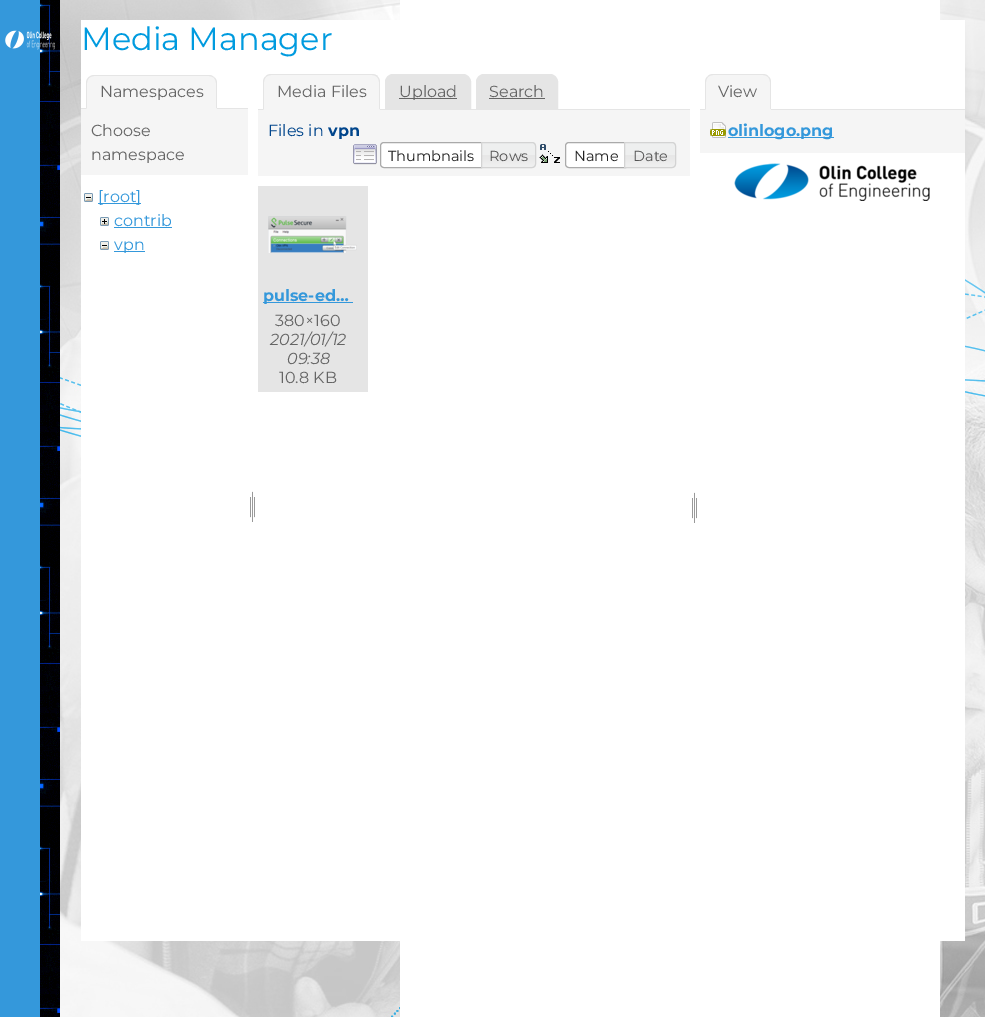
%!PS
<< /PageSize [985 1017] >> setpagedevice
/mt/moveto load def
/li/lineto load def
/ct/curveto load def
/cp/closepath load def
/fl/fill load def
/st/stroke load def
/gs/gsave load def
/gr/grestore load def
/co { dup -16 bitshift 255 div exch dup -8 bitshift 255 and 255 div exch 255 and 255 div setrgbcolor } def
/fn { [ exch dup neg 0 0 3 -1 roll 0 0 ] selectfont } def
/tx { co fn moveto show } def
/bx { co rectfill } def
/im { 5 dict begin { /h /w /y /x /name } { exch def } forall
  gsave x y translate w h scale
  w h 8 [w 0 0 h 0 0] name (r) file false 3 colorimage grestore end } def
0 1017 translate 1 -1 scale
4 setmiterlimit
0 0 985 1017 16#FFFFFF bx
(media/1.raw) 60 0 925 1017 im
0 0 40 1017 16#3498DB bx
(media/2.raw) 40 0 20 1017 im
400 0 540 1017 16#FFFFFF bx
(media/3.raw) 5 30 50 20 im
81 20 884 921 16#FFFFFF bx
81 108 167 1 16#E5E5E5 bx
16#F5F5F5 co
94 75 mt 209 75 li 213.5 75 217 78.5 217 83 ct 217 109 li 86 109 li 86 83 li 86 78.5 89.5 75 94 75 ct cp fl
16#E5E5E5 co
94 75 mt 92 75 90 76 88 78 ct 89 78 li 90 77 92 76 94 76 ct 209 76 li 211 76 213 77 214 78 ct 213 76 211 75 209 75 ct cp fl
217 109 mt 217 83 li 217 81 216 79 214.5 77.5 ct 214 78 li 215 79 216 81 216 83 ct 216 108 li cp fl
16#F5F5F5 co
217 109 mt 216 108 li 87 108 li 86 109 li cp fl
16#E5E5E5 co
86 109 mt 87 108 li 87 83 li 87 81 88 79 89 78 ct 88.5 77.5 li 87 79 86 81 86 83 ct cp fl
81 109 167 66 16#F5F5F5 bx
(media/4.raw) 84 193 9 9 im
98 203 43 1 16#3498DB bx
(media/5.raw) 100 217 9 9 im
114 227 58 1 16#3498DB bx
(media/4.raw) 100 241 9 9 im
114 251 31 1 16#3498DB bx
(media/6.raw) 250 491 5 31 im
16#E5E5E5 co
393 74.5 mt 463 74.5 li 467 74.5 470.5 78 470.5 82 ct 470.5 109.5 li 385.5 109.5 li 385.5 82 li 385.5 78 389 74.5 393 74.5 ct cp gs fl gr
st
484 74.5 mt 550 74.5 li 554 74.5 557.5 78 557.5 82 ct 557.5 109.5 li 476.5 109.5 li 476.5 82 li 476.5 78 480 74.5 484 74.5 ct cp gs fl gr
st
258 109 432 1 16#E5E5E5 bx
16#F5F5F5 co
271 74 mt 372 74 li 376.5 74 380 77.5 380 82 ct 380 110 li 263 110 li 263 82 li 263 77.5 266.5 74 271 74 ct cp fl
16#E5E5E5 co
271 74 mt 269 74 267 75 266 76 ct 266 77 li 267 76 269 75 271 75 ct 372 75 li 374 75 376 76 377 77 ct 378 76 li 376 75 374 74 372 74 ct cp fl
380 110 mt 380 82 li 380 80 379 78 377.5 76.5 ct 377 77 li 378 78 379 80 379 82 ct 379 109 li cp fl
16#F5F5F5 co
380 110 mt 379 109 li 264 109 li 263 110 li cp fl
16#E5E5E5 co
263 110 mt 264 109 li 264 82 li 264 80 265 78 266 77 ct 265.5 76.5 li 264 78 263 80 263 82 ct cp fl
399 98 58 1 16#656565 bx
489 98 56 1 16#656565 bx
258 110 432 66 16#F5F5F5 bx
(media/7.raw) 353 144 24 21 im
16#FFFFFF co
384 142.5 mt 481.5 142.5 li 481.5 167.5 li 384 167.5 li 382 167.5 380.5 166 380.5 164 ct 380.5 146 li 380.5 144 382 142.5 384 142.5 ct cp gs fl gr
16#AAAAAA co
st
(media/8.raw) 482 142 54 26 im
16#D3D3D3 co
481.5 142.5 mt 532 142.5 li 534 142.5 535.5 144 535.5 146 ct 535.5 164 li 535.5 166 534 167.5 532 167.5 ct 481.5 167.5 li cp st
(media/9.raw) 539 144 21 19 im
16#FFFFFF co
569 142.5 mt 625.5 142.5 li 625.5 167.5 li 569 167.5 li 567 167.5 565.5 166 565.5 164 ct 565.5 146 li 565.5 144 567 142.5 569 142.5 ct cp gs fl gr
16#AAAAAA co
st
(media/10.raw) 625 142 51 26 im
16#D3D3D3 co
624.5 142.5 mt 672 142.5 li 674 142.5 675.5 144 675.5 146 ct 675.5 164 li 675.5 166 674 167.5 672 167.5 ct 624.5 167.5 li cp st
258 186 110 206 16#E5E5E5 bx
(media/11.raw) 268 216 89 37 im
263 302 90 1 16#3498DB bx
(media/6.raw) 692 492 5 31 im
700 109 265 1 16#E5E5E5 bx
16#F5F5F5 co
713 74 mt 763 74 li 767.5 74 771 77.5 771 82 ct 771 110 li 705 110 li 705 82 li 705 77.5 708.5 74 713 74 ct cp fl
16#E5E5E5 co
713 74 mt 711 74 709 75 708 76 ct 708 77 li 709 76 711 75 713 75 ct 763 75 li 765 75 767 76 768 77 ct 768 76 li 767 75 765 74 763 74 ct cp 771 110 mt 771 82 li 771 80 770 78 768.5 76.5 ct 768 77 li 769 78 770 80 770 82 ct 770 109 li cp fl
16#F5F5F5 co
771 110 mt 770 109 li 706 109 li 705 110 li cp fl
16#E5E5E5 co
705 110 mt 706 109 li 706 82 li 706 80 707 78 708 77 ct 707.5 76.5 li 706 78 705 80 705 82 ct cp fl
700 110 265 43 16#F5F5F5 bx
(media/12.raw) 710 122 16 16 im
728 137 106 1 16#3498DB bx
(media/13.raw) 734 163 196 38 im
(Media Manager) 81 50 /Montserrat-Regular 32 16#009BDF tx
(Namespaces) 100 97 /Montserrat-Regular 16 16#656565 tx
(Choose) 91 136 /Montserrat-Regular 16 16#656565 tx
(namespace) 91 160 /Montserrat-Regular 16 16#656565 tx
([root]) 98 202 /Montserrat-Regular 16 16#3498DB tx
(contrib) 114 226 /Montserrat-Regular 16 16#3498DB tx
(vpn) 114 250 /Montserrat-Regular 16 16#3498DB tx
(Media Files) 277 97 /Montserrat-Regular 16 16#656565 tx
(Upload) 399 97 /Montserrat-Regular 16 16#656565 tx
(Search) 489 97 /Montserrat-Regular 16 16#656565 tx
(Files in) 268 136 /Montserrat-Regular 16 16#00458C tx
(vpn) 328 136 /Montserrat-Bold 16 16#00458C tx
(Thumbnails) 388 161 /Montserrat-Regular 14.5 16#212121 tx
(Rows) 489 161 /Montserrat-Regular 14.5 16#555555 tx
(Name) 574 161 /Montserrat-Regular 14.5 16#212121 tx
(Date) 633 161 /Montserrat-Regular 14.5 16#555555 tx
(pulse-ed…) 263 301 /Montserrat-Bold 16 16#3498DB tx
(380×160) 275 326 /Montserrat-Regular 16 16#656565 tx
(2021/01/12) 270 345 /Montserrat-Italic 16 16#656565 tx
(09:38) 287 364 /Montserrat-Italic 16 16#656565 tx
(10.8 KB) 279 383 /Montserrat-Regular 16 16#656565 tx
(View) 718 97 /Montserrat-Regular 16 16#656565 tx
(olinlogo.png) 728 136 /Montserrat-Bold 16 16#3498DB tx
showpage
